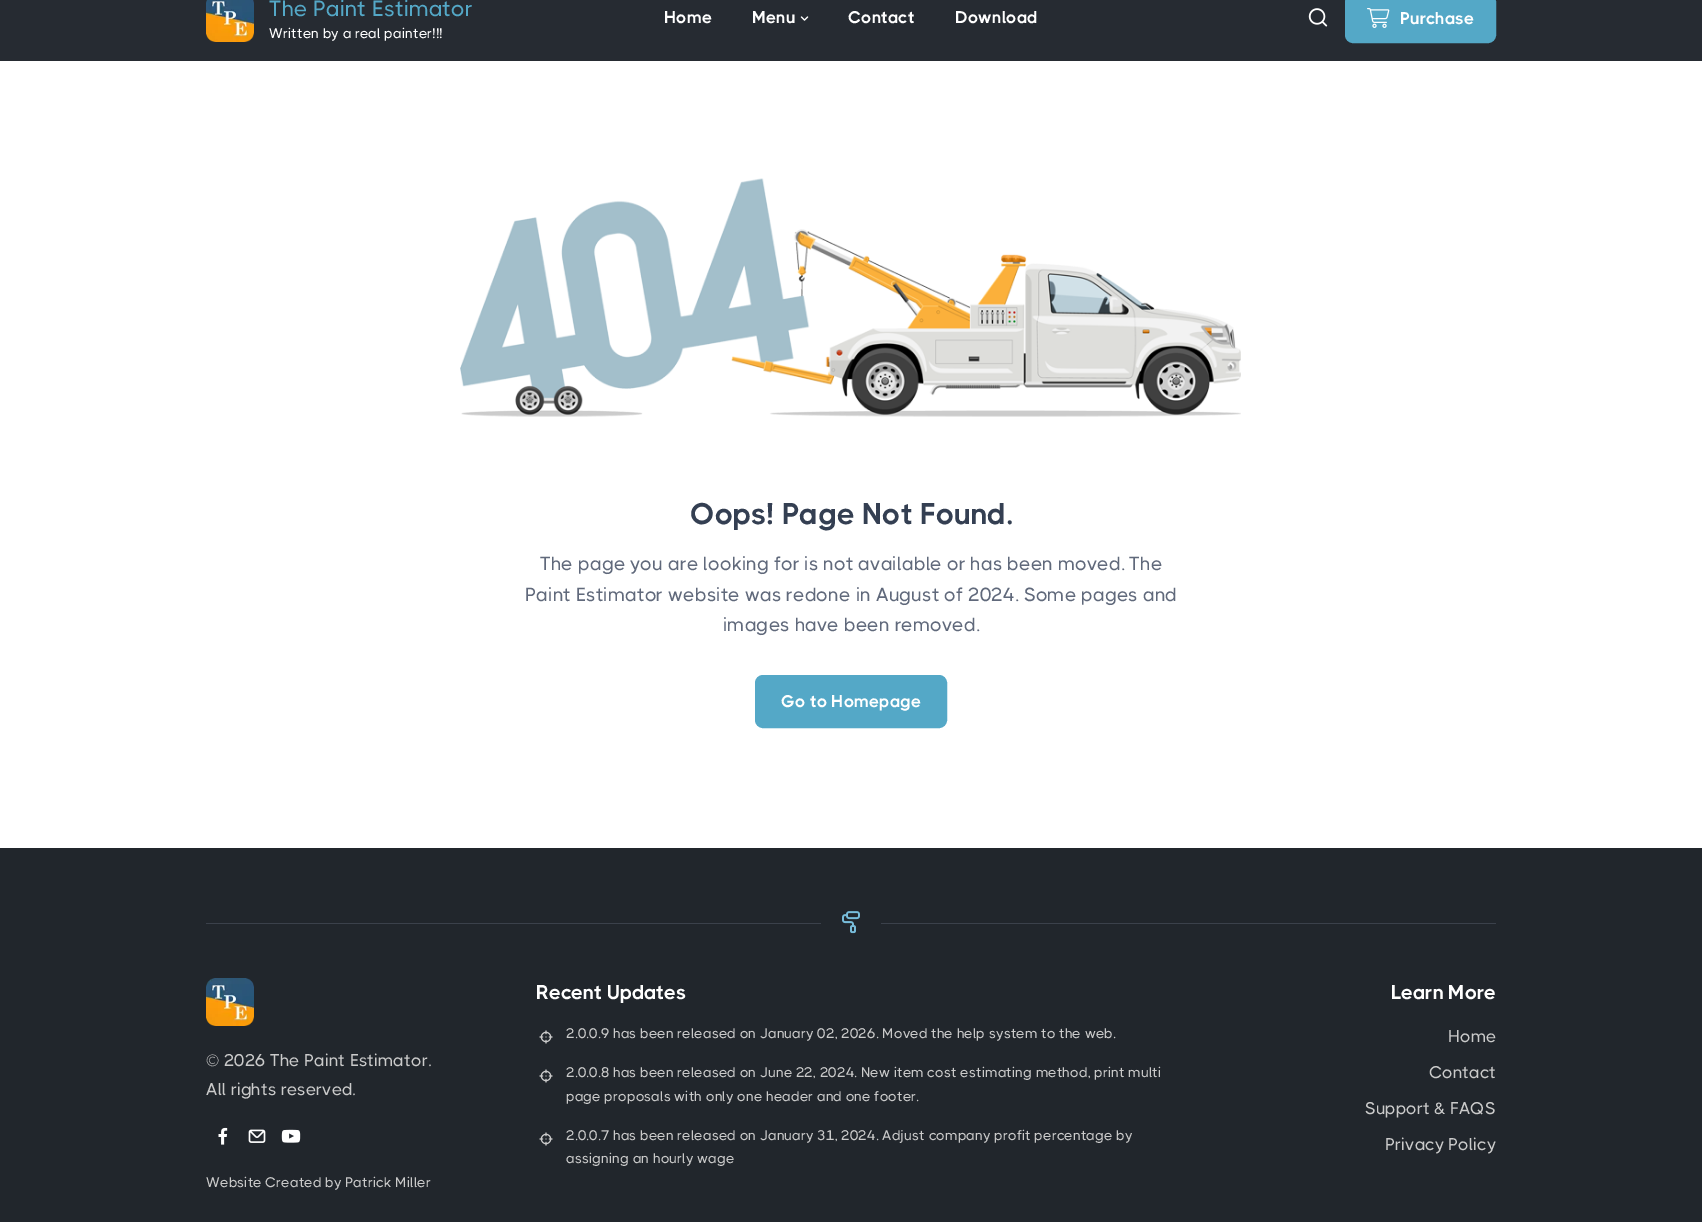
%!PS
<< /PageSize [1702 1222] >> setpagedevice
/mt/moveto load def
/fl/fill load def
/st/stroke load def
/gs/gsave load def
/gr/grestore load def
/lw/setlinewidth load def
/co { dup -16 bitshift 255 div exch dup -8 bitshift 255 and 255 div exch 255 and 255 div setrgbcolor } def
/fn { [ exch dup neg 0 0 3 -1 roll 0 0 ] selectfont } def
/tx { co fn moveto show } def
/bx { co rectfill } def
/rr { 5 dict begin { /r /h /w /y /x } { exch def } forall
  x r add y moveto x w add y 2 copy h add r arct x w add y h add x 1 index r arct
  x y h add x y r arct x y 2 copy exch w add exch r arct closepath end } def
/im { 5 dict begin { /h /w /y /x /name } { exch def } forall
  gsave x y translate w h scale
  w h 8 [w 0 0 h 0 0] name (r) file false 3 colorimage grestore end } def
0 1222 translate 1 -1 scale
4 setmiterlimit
0 0 1702 1222 16#FFFFFF bx
0 0 1702 61 16#262B32 bx
(media/1.raw) 206 0 48 42 im
(media/2.raw) 800 16 9 5 im
(media/3.raw) 1308 8 20 19 im
16#54A8C7 co
1346 -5 149 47 7 rr gs fl gr
2 lw
st
(media/4.raw) 1367 8 23 20 im
(media/5.raw) 460 178 781 239 im
756 676 190 51 7 rr gs fl gr
st
0 848 1702 374 16#21262C bx
206 923 615 1 16#3B414B bx
(media/6.raw) 842 911 18 23 im
881 923 615 1 16#3B414B bx
(media/7.raw) 206 978 48 48 im
(media/8.raw) 218 1127 10 18 im
(media/9.raw) 248 1129 18 14 im
(media/10.raw) 281 1129 20 14 im
(media/11.raw) 539 1030 14 14 im
(media/11.raw) 539 1069 14 14 im
(media/11.raw) 539 1132 14 14 im
(The Paint Estimator) 269 16 /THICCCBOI-Medium 22 16#54A8C7 tx
(Written by a real painter!!!) 269 38 /THICCCBOI-Medium 14 16#FFFFFF tx
(Home) 664 23 /THICCCBOI-Bold 17 16#FFFFFF tx
(Menu) 752 23 /THICCCBOI-Bold 17 16#FFFFFF tx
(Contact) 848 23 /THICCCBOI-Bold 17 16#FFFFFF tx
(Download) 955 23 /THICCCBOI-Bold 17 16#FFFFFF tx
(Purchase) 1400 24 /THICCCBOI-Bold 17 16#FFFFFF tx
/THICCCBOI-Bold 30 fn
16#343F52 co
690 524 mt -.2 0 (Oops! Page Not Found.) ashow
(The page you are looking for is not available or has been moved. The) 540 570 /THICCCBOI-Medium 19 16#60697B tx
(Paint Estimator website was redone in August of 2024. Some pages and) 525 601 /THICCCBOI-Medium 19 16#60697B tx
(images have been removed.) 723 631 /THICCCBOI-Medium 19 16#60697B tx
(Go to Homepage) 781 707 /THICCCBOI-Bold 17 16#FFFFFF tx
(© 2026 The Paint Estimator.) 206 1066 /THICCCBOI-Medium 17 16#CACACA tx
(All rights reserved.) 206 1095 /THICCCBOI-Medium 17 16#CACACA tx
(Website Created by Patrick Miller) 206 1187 /THICCCBOI-Medium 14 16#CACACA tx
/THICCCBOI-Bold 20 fn
16#FFFFFF co
536 999 mt -.2 0 (Recent Updates) ashow
(2.0.0.9 has been released on January 02, 2026. Moved the help system to the web.) 566 1038 /THICCCBOI-Medium 14 16#CACACA tx
(2.0.0.8 has been released on June 22, 2024. New item cost estimating method, print multi) 566 1077 /THICCCBOI-Medium 14 16#CACACA tx
(page proposals with only one header and one footer.) 566 1101 /THICCCBOI-Medium 14 16#CACACA tx
(2.0.0.7 has been released on January 31, 2024. Adjust company profit percentage by) 566 1140 /THICCCBOI-Medium 14 16#CACACA tx
(assigning an hourly wage) 566 1163 /THICCCBOI-Medium 14 16#CACACA tx
/THICCCBOI-Bold 20 fn
16#FFFFFF co
1391 999 mt -.2 0 (Learn More) ashow
(Home) 1448 1042 /THICCCBOI-Medium 17 16#CACACA tx
(Contact) 1429 1078 /THICCCBOI-Medium 17 16#CACACA tx
(Support & FAQS) 1365 1114 /THICCCBOI-Medium 17 16#CACACA tx
(Privacy Policy) 1385 1150 /THICCCBOI-Medium 17 16#CACACA tx
showpage
